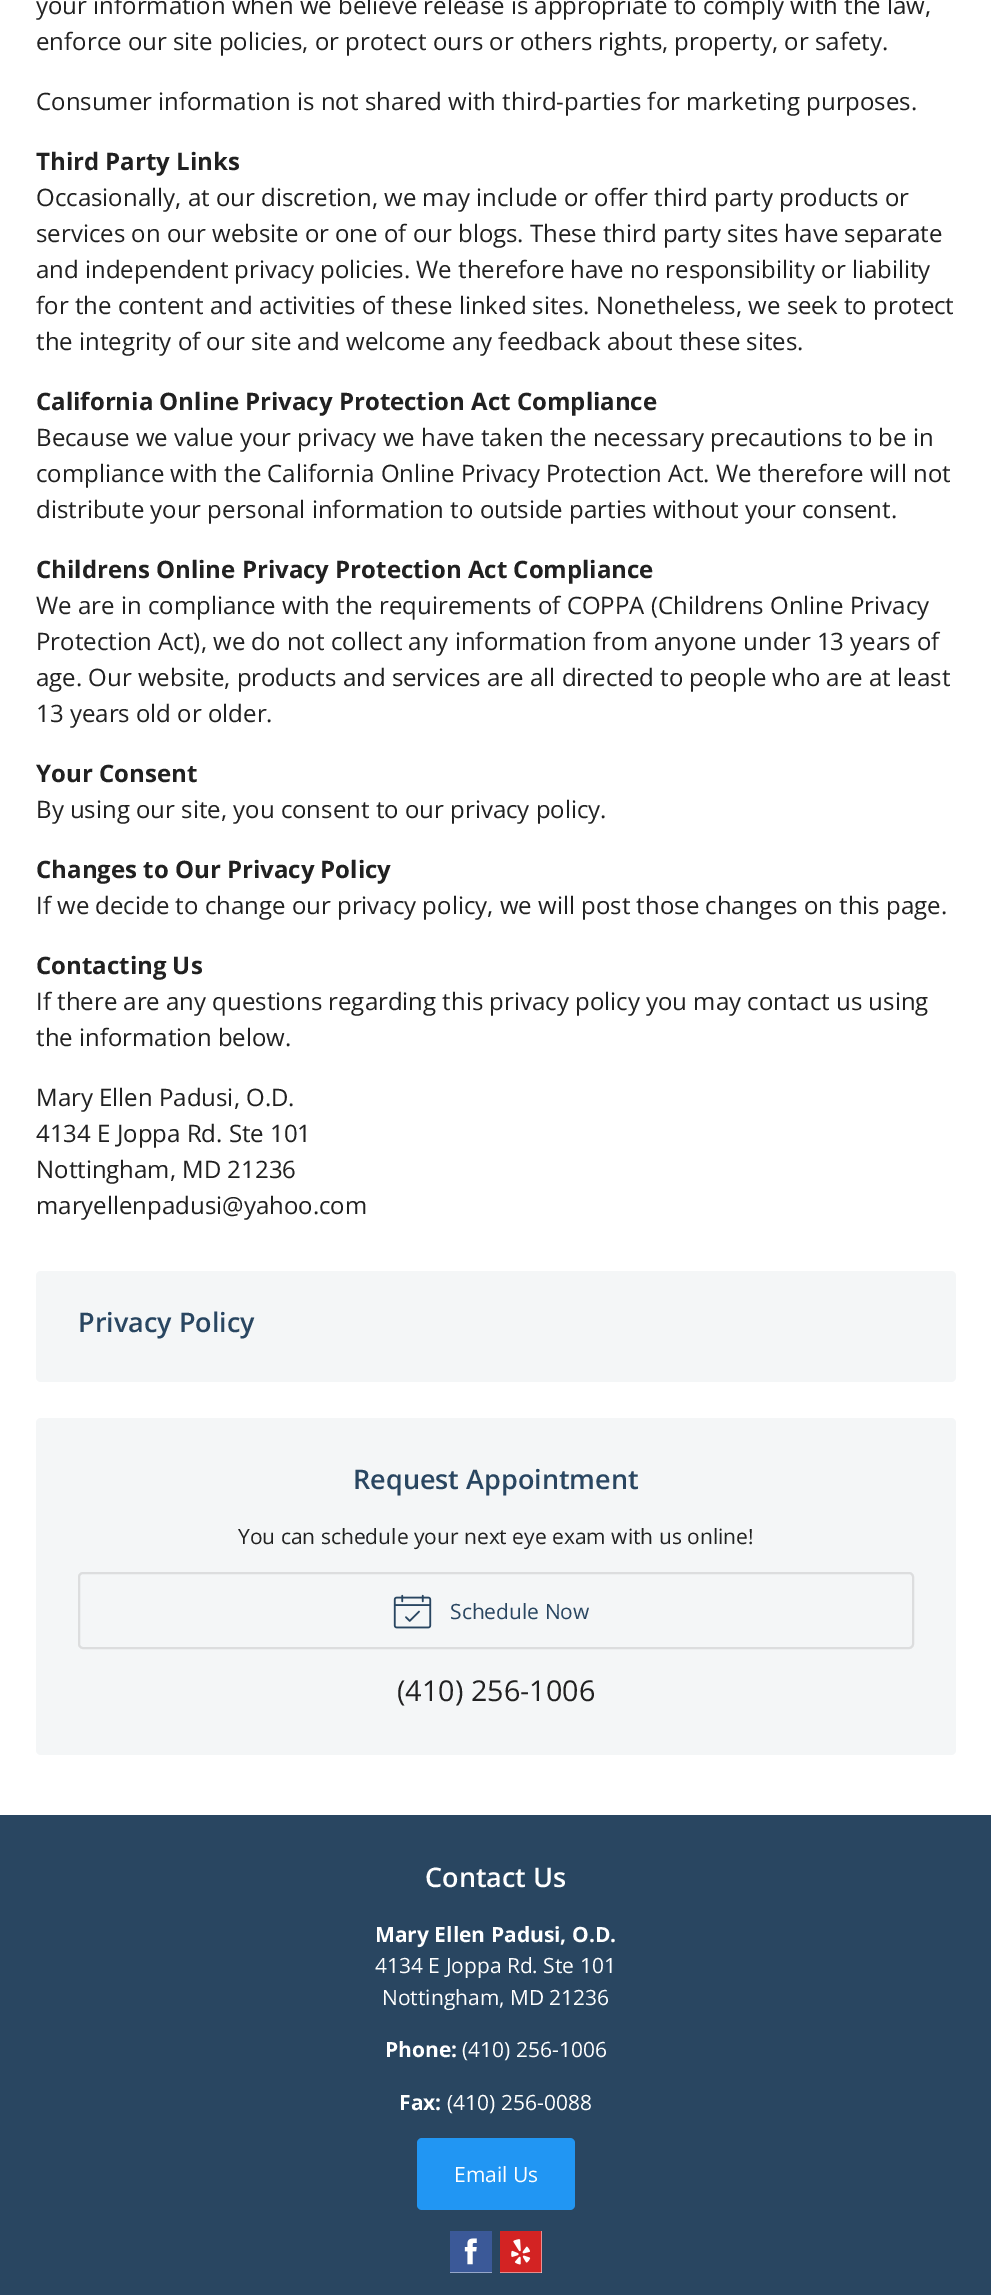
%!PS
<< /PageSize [991 2295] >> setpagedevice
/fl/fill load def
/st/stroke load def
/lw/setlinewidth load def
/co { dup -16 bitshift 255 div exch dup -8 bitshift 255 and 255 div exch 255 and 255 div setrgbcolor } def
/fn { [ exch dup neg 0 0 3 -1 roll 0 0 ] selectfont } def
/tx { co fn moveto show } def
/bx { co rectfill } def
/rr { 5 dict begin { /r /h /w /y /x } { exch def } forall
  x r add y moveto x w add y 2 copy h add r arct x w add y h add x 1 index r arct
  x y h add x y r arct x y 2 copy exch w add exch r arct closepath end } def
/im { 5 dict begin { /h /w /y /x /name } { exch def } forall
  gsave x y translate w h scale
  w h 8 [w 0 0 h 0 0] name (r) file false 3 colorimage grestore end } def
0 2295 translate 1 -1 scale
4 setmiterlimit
0 0 991 2295 16#294661 bx
0 0 991 1815 16#FFFFFF bx
16#F4F6F7 co
36 1271 920 111 5 rr fl
36 1418 920 337 5 rr fl
16#DCDDDE co
2 lw
79 1573 834 75 4 rr st
(media/1.raw) 393 1594 39 35 im
16#2196F3 co
417 2138 158 72 5 rr fl
450 2238 42 35 16#FFFFFF bx
(media/2.raw) 450 2231 42 42 im
500 2231 42 42 16#FFFFFF bx
(media/3.raw) 500 2231 42 42 im
(your information when we believe release is appropriate to comply with the law,) 36 14 /OpenSans-Regular 24 16#212121 tx
(enforce our site policies, or protect ours or others rights, property, or safety.) 36 50 /OpenSans-Regular 24 16#212121 tx
(Consumer information is not shared with third-parties for marketing purposes.) 36 110 /OpenSans-Regular 24 16#212121 tx
(Third Party Links) 36 170 /OpenSans-Bold 24 16#212121 tx
(Occasionally, at our discretion, we may include or offer third party products or) 36 206 /OpenSans-Regular 24 16#212121 tx
(services on our website or one of our blogs. These third party sites have separate) 36 242 /OpenSans-Regular 24 16#212121 tx
(and independent privacy policies. We therefore have no responsibility or liability) 36 278 /OpenSans-Regular 24 16#212121 tx
(for the content and activities of these linked sites. Nonetheless, we seek to protect) 36 314 /OpenSans-Regular 24 16#212121 tx
(the integrity of our site and welcome any feedback about these sites.) 36 350 /OpenSans-Regular 24 16#212121 tx
(California Online Privacy Protection Act Compliance) 36 410 /OpenSans-Bold 24 16#212121 tx
(Because we value your privacy we have taken the necessary precautions to be in) 36 446 /OpenSans-Regular 24 16#212121 tx
(compliance with the California Online Privacy Protection Act. We therefore will not) 36 482 /OpenSans-Regular 24 16#212121 tx
(distribute your personal information to outside parties without your consent.) 36 518 /OpenSans-Regular 24 16#212121 tx
(Childrens Online Privacy Protection Act Compliance) 36 578 /OpenSans-Bold 24 16#212121 tx
(We are in compliance with the requirements of COPPA \(Childrens Online Privacy) 36 614 /OpenSans-Regular 24 16#212121 tx
(Protection Act\), we do not collect any information from anyone under 13 years of) 36 650 /OpenSans-Regular 24 16#212121 tx
(age. Our website, products and services are all directed to people who are at least) 36 686 /OpenSans-Regular 24 16#212121 tx
(13 years old or older.) 36 722 /OpenSans-Regular 24 16#212121 tx
(Your Consent) 36 782 /OpenSans-Bold 24 16#212121 tx
(By using our site, you consent to our privacy policy.) 36 818 /OpenSans-Regular 24 16#212121 tx
(Changes to Our Privacy Policy) 36 878 /OpenSans-Bold 24 16#212121 tx
(If we decide to change our privacy policy, we will post those changes on this page.) 36 914 /OpenSans-Regular 24 16#212121 tx
(Contacting Us) 36 974 /OpenSans-Bold 24 16#212121 tx
(If there are any questions regarding this privacy policy you may contact us using) 36 1010 /OpenSans-Regular 24 16#212121 tx
(the information below.) 36 1046 /OpenSans-Regular 24 16#212121 tx
(Mary Ellen Padusi, O.D.) 36 1106 /OpenSans-Regular 24 16#212121 tx
(4134 E Joppa Rd. Ste 101) 36 1142 /OpenSans-Regular 24 16#212121 tx
(Nottingham, MD 21236) 36 1178 /OpenSans-Regular 24 16#212121 tx
(maryellenpadusi@yahoo.com) 36 1214 /OpenSans-Regular 24 16#212121 tx
(Privacy Policy) 78 1332 /OpenSans-SemiBold 27 16#294661 tx
(Request Appointment) 353 1489 /OpenSans-SemiBold 27 16#294661 tx
(You can schedule your next eye exam with us online!) 238 1544 /OpenSans-Regular 21 16#212121 tx
(Schedule Now) 450 1619 /OpenSans-Regular 21 16#294661 tx
(\(410\) 256-1006) 397 1701 /OpenSans-Regular 28.75 16#212121 tx
(Contact Us) 425 1887 /OpenSans-SemiBold 27 16#FFFFFF tx
(Mary Ellen Padusi, O.D.) 375 1942 /OpenSans-Bold 21 16#FFFFFF tx
(4134 E Joppa Rd. Ste 101) 375 1973 /OpenSans-Regular 21 16#FFFFFF tx
(Nottingham, MD 21236) 382 2005 /OpenSans-Regular 21 16#FFFFFF tx
(Phone:) 385 2057 /OpenSans-Bold 21 16#FFFFFF tx
(\(410\) 256-1006) 462 2057 /OpenSans-Regular 21 16#FFFFFF tx
(Fax:) 399 2110 /OpenSans-Bold 21 16#FFFFFF tx
(\(410\) 256-0088) 447 2110 /OpenSans-Regular 21 16#FFFFFF tx
(Email Us) 454 2182 /OpenSans-Regular 21 16#FFFFFF tx
showpage
